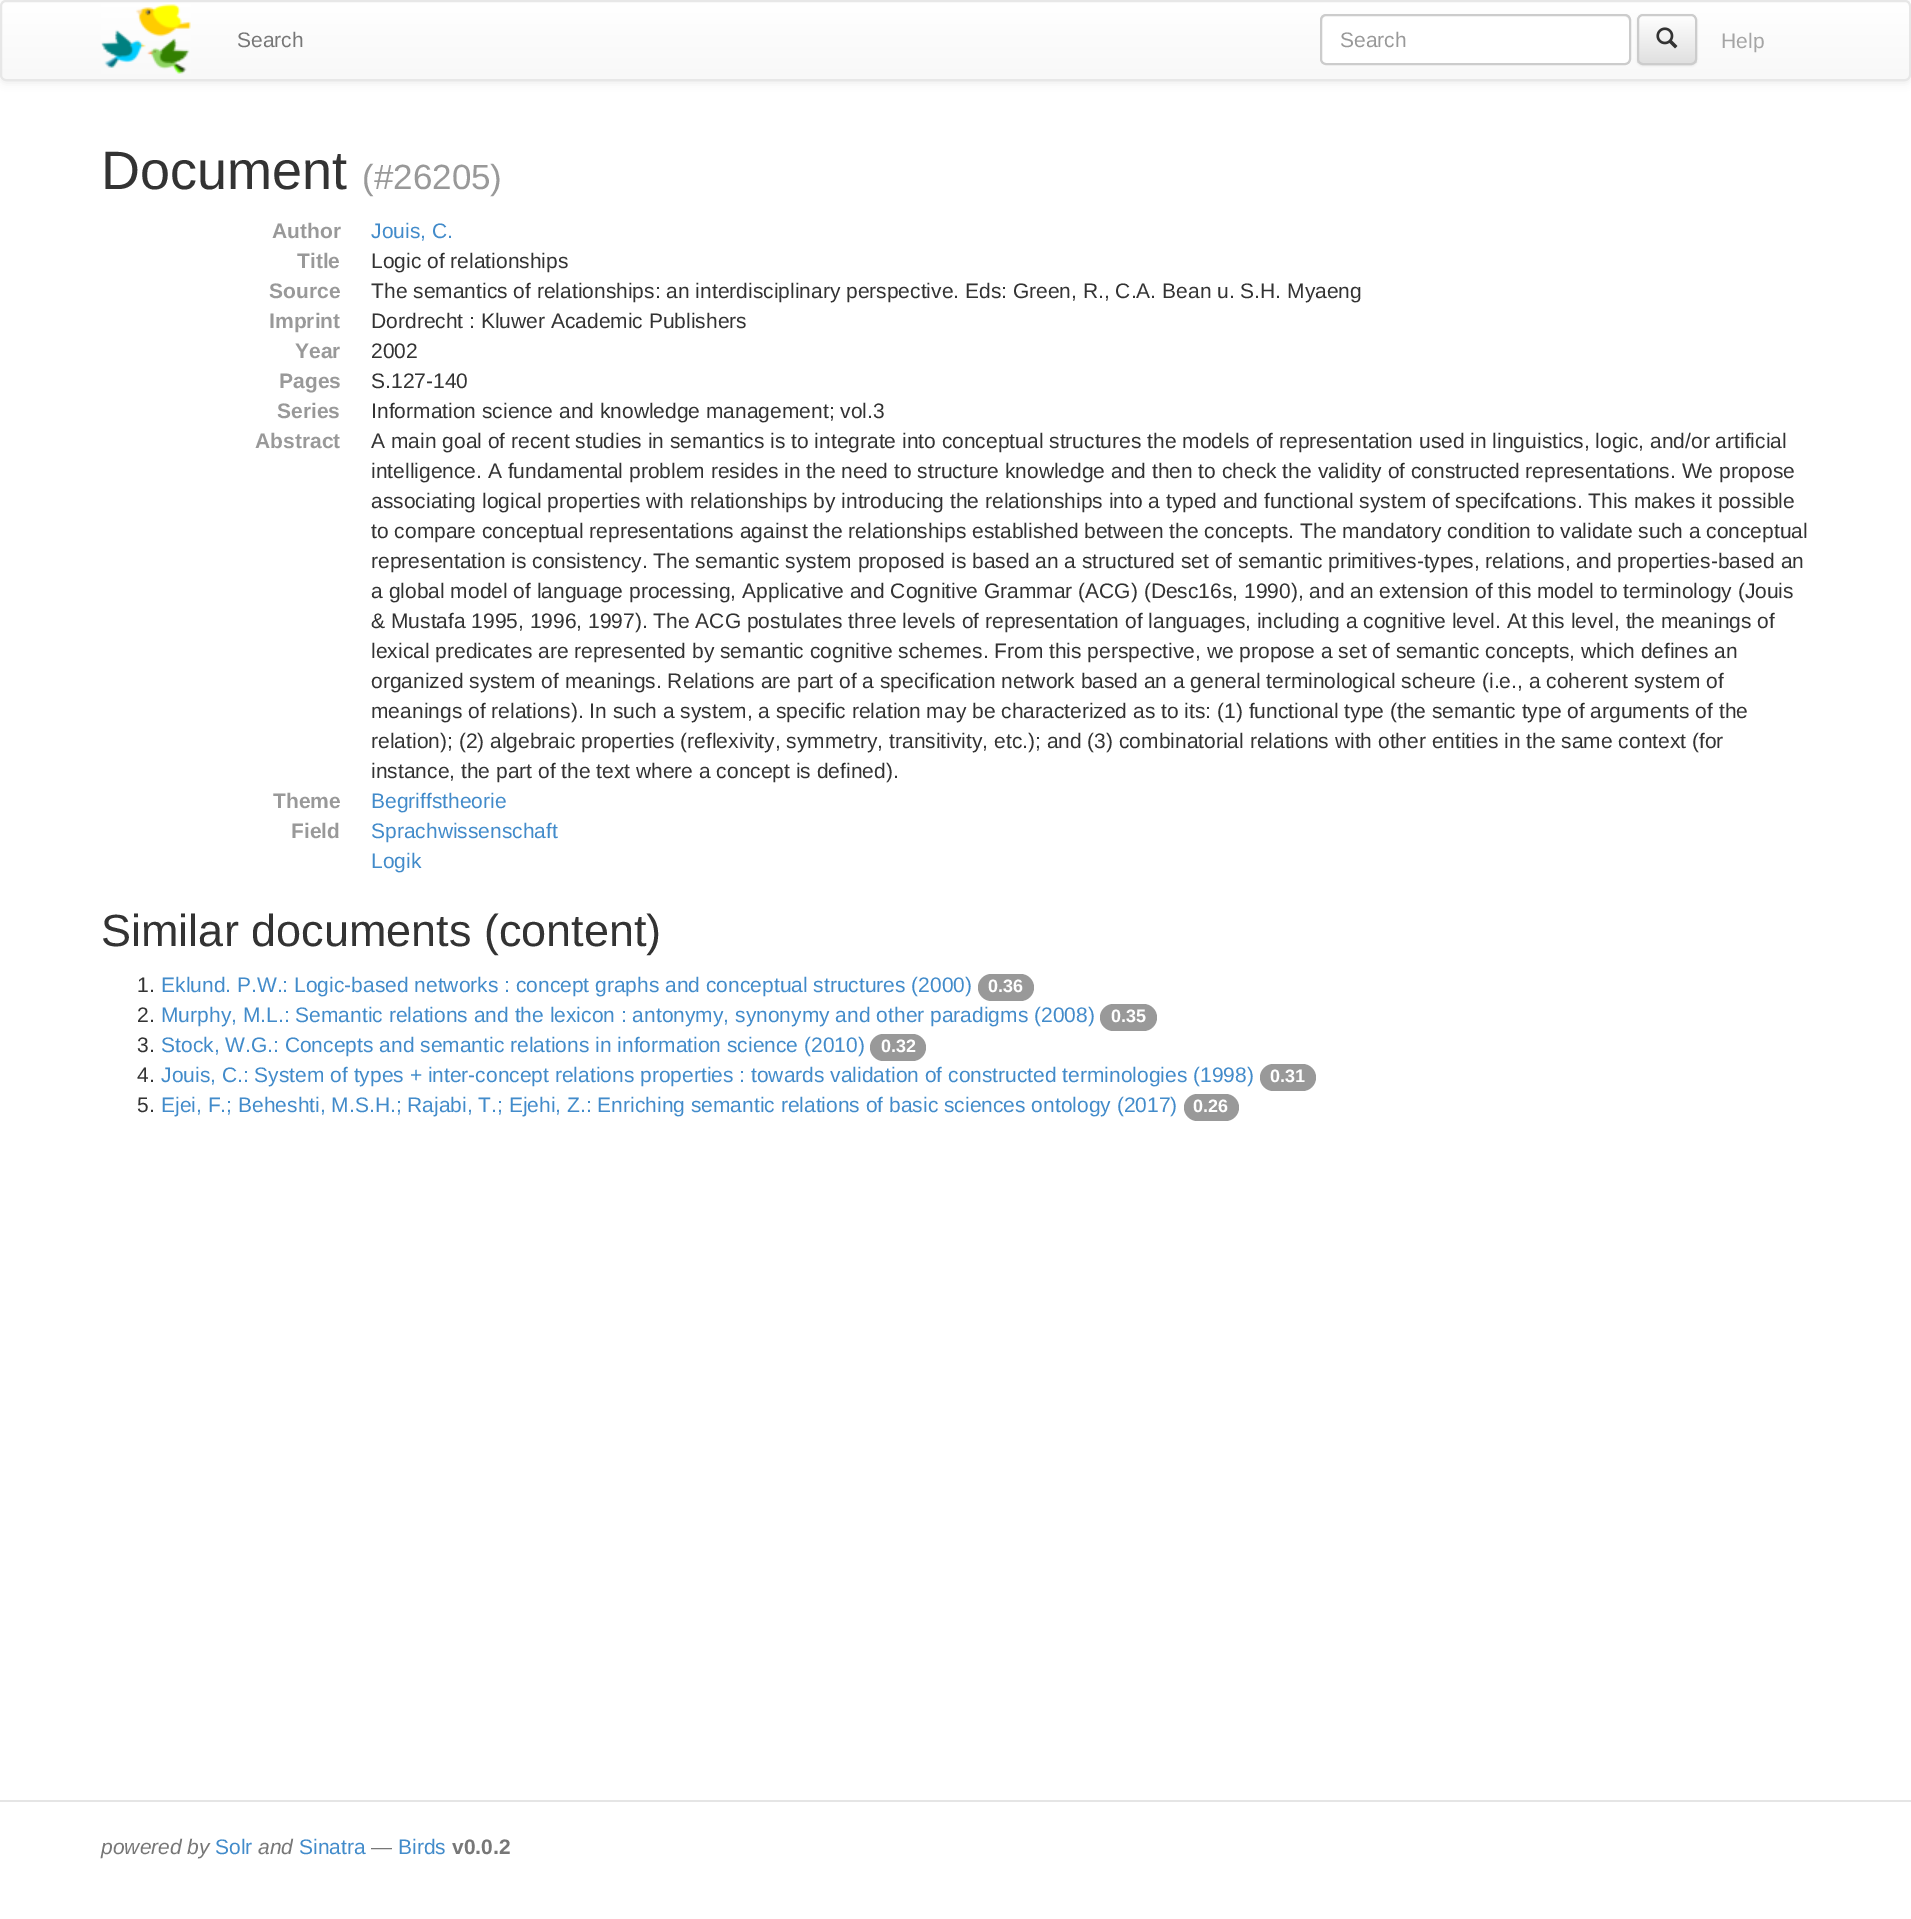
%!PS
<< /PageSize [1911 1919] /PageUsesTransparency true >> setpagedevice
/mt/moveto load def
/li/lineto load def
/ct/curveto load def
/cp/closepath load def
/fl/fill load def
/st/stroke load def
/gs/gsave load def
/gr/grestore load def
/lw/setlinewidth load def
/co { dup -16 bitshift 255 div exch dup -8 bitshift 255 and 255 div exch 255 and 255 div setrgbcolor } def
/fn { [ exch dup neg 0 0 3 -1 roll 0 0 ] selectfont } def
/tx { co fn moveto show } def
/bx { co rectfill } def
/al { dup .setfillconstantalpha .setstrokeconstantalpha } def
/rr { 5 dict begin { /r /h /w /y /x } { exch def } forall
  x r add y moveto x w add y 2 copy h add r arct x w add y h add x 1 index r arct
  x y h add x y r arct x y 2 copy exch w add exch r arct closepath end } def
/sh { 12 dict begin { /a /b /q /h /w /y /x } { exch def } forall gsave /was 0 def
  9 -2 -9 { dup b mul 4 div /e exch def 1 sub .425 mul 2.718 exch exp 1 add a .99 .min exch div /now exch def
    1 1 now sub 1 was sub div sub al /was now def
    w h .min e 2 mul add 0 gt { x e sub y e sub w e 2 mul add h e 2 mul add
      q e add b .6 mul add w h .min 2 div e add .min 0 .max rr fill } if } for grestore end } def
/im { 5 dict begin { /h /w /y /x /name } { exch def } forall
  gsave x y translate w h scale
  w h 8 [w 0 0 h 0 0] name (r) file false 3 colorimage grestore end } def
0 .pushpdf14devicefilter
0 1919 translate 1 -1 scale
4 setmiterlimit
0 0 1911 1919 16#FFFFFF bx
16#000000 co
0 2 1911 81 6 4 .07 sh
gs
0 0 1911 81 6 rr clip newpath
gs 0 2 mt 1911 2 li 1911 80 li 0 80 li cp clip newpath
<< /ShadingType 2 /ColorSpace /DeviceRGB /Coords [956 1.5 956 80] /Extend [true true] /Function << /FunctionType 2 /Domain [0 1] /C0 [1 1 1] /C1 [.973 .973 .973] /N 1 >> >> shfill gr
gr
16#E7E7E7 co
2 lw
1 1 1909 79 5 rr st
(media/1.raw) 101 4 90 70 im
16#FFFFFF co
1320 14 311 51 6 rr fl
16#ECECEC co
1326 16 mt 1624 16 li 1627 16 1629 19 1629 21 ct 1629 18 1627 15 1624 15 ct 1327 15 li 1324 15 1322 18 1322 21 ct 1322 19 1324 16 1326 16 ct cp fl
16#CCCCCC co
1321 15 309 49 5 rr st
16#000000 co
1637 15 60 51 6 1 .07 sh
gs
1637 14 60 51 6 rr clip newpath
gs 1637 15 mt 1697 15 li 1697 63 li 1637 63 li cp clip newpath
<< /ShadingType 2 /ColorSpace /DeviceRGB /Coords [1667 15 1667 63] /Extend [true true] /Function << /FunctionType 2 /Domain [0 1] /C0 [1 1 1] /C1 [.878 .878 .878] /N 1 >> >> shfill gr
gr
16#CCCCCC co
1638 15 58 49 5 rr st
(media/2.raw) 1656 27 22 22 im
16#999999 co
978 974 56 27 13.5 rr fl
1100 1004 57 27 13.5 rr fl
870 1034 56 27 13.5 rr fl
1260 1064 56 27 13.5 rr fl
1184 1094 55 27 13.5 rr fl
0 1800 1911 2 16#E5E5E5 bx
(Search) 237 47 /LiberationSans-Regular 21 16#777777 tx
(Search) 1340 47 /LiberationSans-Regular 21 16#999999 tx
(Help) 1721 48 /LiberationSans-Regular 21 16#A5A5A5 tx
(Document) 101 189 /LiberationSans-Regular 54 16#333333 tx
(\(#26205\)) 362 189 /LiberationSans-Regular 35 16#999999 tx
(Author) 272 238 /LiberationSans-Bold 21 16#999999 tx
(Jouis, C.) 371 238 /LiberationSans-Regular 21 16#428BCA tx
(Title) 297 268 /LiberationSans-Bold 21 16#999999 tx
(Logic of relationships) 371 268 /LiberationSans-Regular 21 16#333333 tx
(Source) 269 298 /LiberationSans-Bold 21 16#999999 tx
(The semantics of relationships: an interdisciplinary perspective. Eds: Green, R., C.A. Bean u. S.H. Myaeng) 371 298 /LiberationSans-Regular 21 16#333333 tx
(Imprint) 269 328 /LiberationSans-Bold 21 16#999999 tx
(Dordrecht : Kluwer Academic Publishers) 371 328 /LiberationSans-Regular 21 16#333333 tx
(Year) 295 358 /LiberationSans-Bold 21 16#999999 tx
(2002) 371 358 /LiberationSans-Regular 21 16#333333 tx
(Pages) 279 388 /LiberationSans-Bold 21 16#999999 tx
(S.127-140) 371 388 /LiberationSans-Regular 21 16#333333 tx
(Series) 277 418 /LiberationSans-Bold 21 16#999999 tx
(Information science and knowledge management; vol.3) 371 418 /LiberationSans-Regular 21 16#333333 tx
(Abstract) 255 448 /LiberationSans-Bold 21 16#999999 tx
(A main goal of recent studies in semantics is to integrate into conceptual structures the models of representation used in linguistics, logic, and/or artificial) 371 448 /LiberationSans-Regular 21 16#333333 tx
(intelligence. A fundamental problem resides in the need to structure knowledge and then to check the validity of constructed representations. We propose) 371 478 /LiberationSans-Regular 21 16#333333 tx
(associating logical properties with relationships by introducing the relationships into a typed and functional system of specifcations. This makes it possible) 371 508 /LiberationSans-Regular 21 16#333333 tx
(to compare conceptual representations against the relationships established between the concepts. The mandatory condition to validate such a conceptual) 371 538 /LiberationSans-Regular 21 16#333333 tx
(representation is consistency. The semantic system proposed is based an a structured set of semantic primitives-types, relations, and properties-based an) 371 568 /LiberationSans-Regular 21 16#333333 tx
(a global model of language processing, Applicative and Cognitive Grammar \(ACG\) \(Desc16s, 1990\), and an extension of this model to terminology \(Jouis) 371 598 /LiberationSans-Regular 21 16#333333 tx
(& Mustafa 1995, 1996, 1997\). The ACG postulates three levels of representation of languages, including a cognitive level. At this level, the meanings of) 371 628 /LiberationSans-Regular 21 16#333333 tx
(lexical predicates are represented by semantic cognitive schemes. From this perspective, we propose a set of semantic concepts, which defines an) 371 658 /LiberationSans-Regular 21 16#333333 tx
(organized system of meanings. Relations are part of a specification network based an a general terminological scheure \(i.e., a coherent system of) 371 688 /LiberationSans-Regular 21 16#333333 tx
(meanings of relations\). In such a system, a specific relation may be characterized as to its: \(1\) functional type \(the semantic type of arguments of the) 371 718 /LiberationSans-Regular 21 16#333333 tx
(relation\); \(2\) algebraic properties \(reflexivity, symmetry, transitivity, etc.\); and \(3\) combinatorial relations with other entities in the same context \(for) 371 748 /LiberationSans-Regular 21 16#333333 tx
(instance, the part of the text where a concept is defined\).) 371 778 /LiberationSans-Regular 21 16#333333 tx
(Theme) 273 808 /LiberationSans-Bold 21 16#999999 tx
(Begriffstheorie) 371 808 /LiberationSans-Regular 21 16#428BCA tx
(Field) 291 838 /LiberationSans-Bold 21 16#999999 tx
(Sprachwissenschaft) 371 838 /LiberationSans-Regular 21 16#428BCA tx
(Logik) 371 868 /LiberationSans-Regular 21 16#428BCA tx
(Similar documents \(content\)) 101 946 /LiberationSans-Regular 45 16#333333 tx
(1.) 137 992 /LiberationSans-Regular 21 16#333333 tx
(Eklund. P.W.: Logic-based networks : concept graphs and conceptual structures \(2000\)) 161 992 /LiberationSans-Regular 21 16#428BCA tx
(0.36) 988 992 /LiberationSans-Bold 18 16#FFFFFF tx
(2.) 137 1022 /LiberationSans-Regular 21 16#333333 tx
(Murphy, M.L.: Semantic relations and the lexicon : antonymy, synonymy and other paradigms \(2008\)) 161 1022 /LiberationSans-Regular 21 16#428BCA tx
(0.35) 1111 1022 /LiberationSans-Bold 18 16#FFFFFF tx
(3.) 137 1052 /LiberationSans-Regular 21 16#333333 tx
(Stock, W.G.: Concepts and semantic relations in information science \(2010\)) 161 1052 /LiberationSans-Regular 21 16#428BCA tx
(0.32) 881 1052 /LiberationSans-Bold 18 16#FFFFFF tx
(4.) 137 1082 /LiberationSans-Regular 21 16#333333 tx
(Jouis, C.: System of types + inter-concept relations properties : towards validation of constructed terminologies \(1998\)) 161 1082 /LiberationSans-Regular 21 16#428BCA tx
(0.31) 1270 1082 /LiberationSans-Bold 18 16#FFFFFF tx
(5.) 137 1112 /LiberationSans-Regular 21 16#333333 tx
(Ejei, F.; Beheshti, M.S.H.; Rajabi, T.; Ejehi, Z.: Enriching semantic relations of basic sciences ontology \(2017\)) 161 1112 /LiberationSans-Regular 21 16#428BCA tx
(0.26) 1193 1112 /LiberationSans-Bold 18 16#FFFFFF tx
(powered by) 101 1854 /LiberationSans-Italic 21 16#777777 tx
(Solr) 215 1854 /LiberationSans-Regular 21 16#428BCA tx
(and) 258 1854 /LiberationSans-Italic 21 16#777777 tx
(Sinatra) 299 1854 /LiberationSans-Regular 21 16#428BCA tx
(—) 371 1854 /LiberationSans-Regular 21 16#777777 tx
(Birds) 398 1854 /LiberationSans-Regular 21 16#428BCA tx
(v0.0.2) 452 1854 /LiberationSans-Bold 21 16#777777 tx
.poppdf14devicefilter showpage
